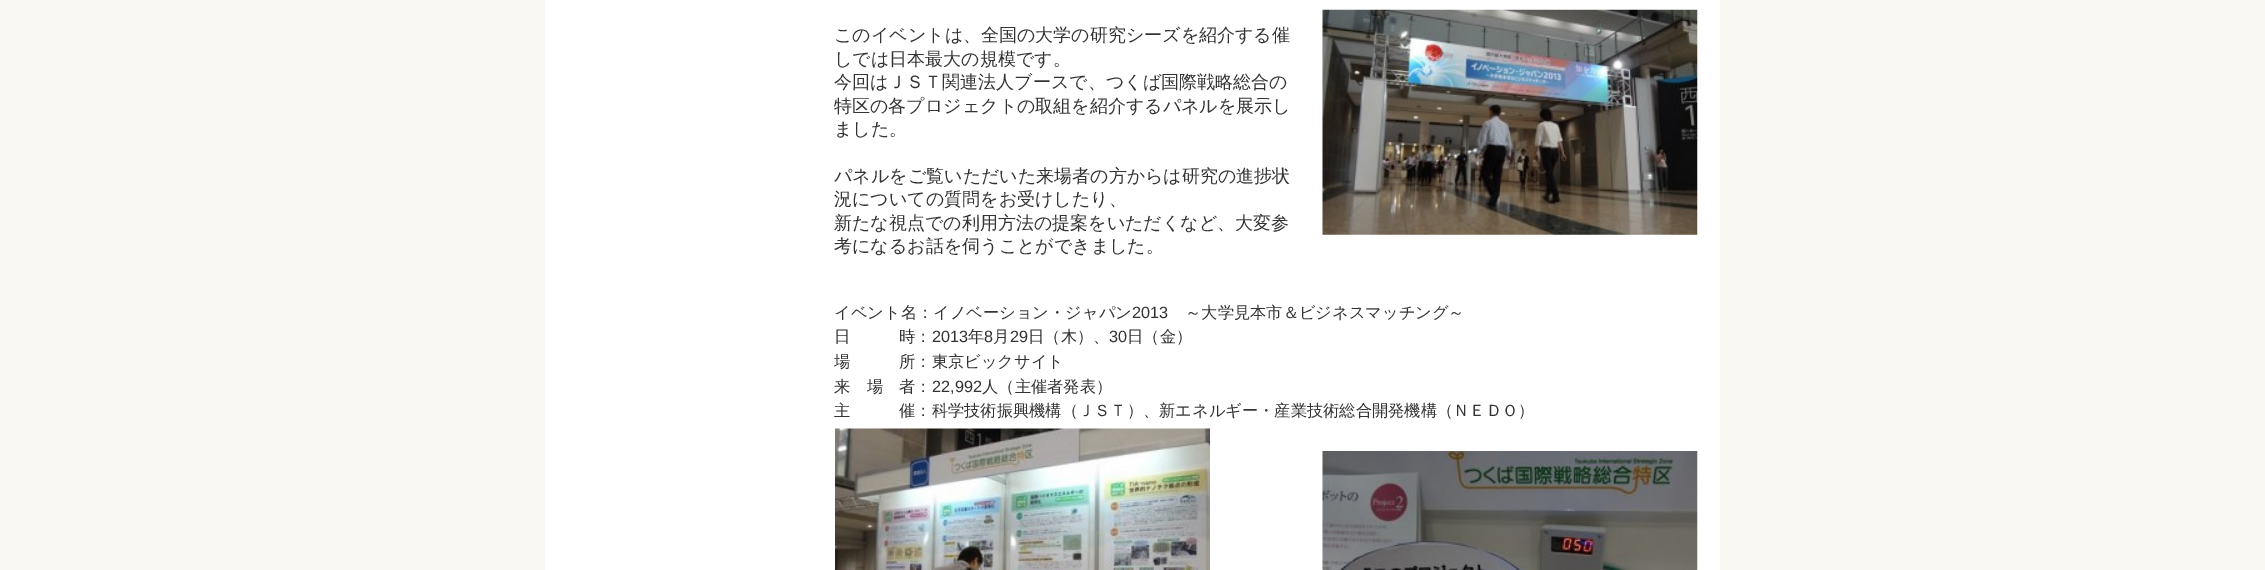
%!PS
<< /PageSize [2265 570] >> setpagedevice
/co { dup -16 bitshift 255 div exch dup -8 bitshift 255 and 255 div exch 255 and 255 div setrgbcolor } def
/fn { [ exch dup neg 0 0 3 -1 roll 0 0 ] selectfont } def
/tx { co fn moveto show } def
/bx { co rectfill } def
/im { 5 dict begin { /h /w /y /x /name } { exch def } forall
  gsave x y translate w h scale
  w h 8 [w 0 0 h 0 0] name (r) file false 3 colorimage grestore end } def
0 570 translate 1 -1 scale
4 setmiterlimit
0 0 2265 570 16#F9F8F3 bx
545 0 1175 570 16#FFFFFF bx
(media/1.raw) 1322 9 376 226 im
(media/2.raw) 835 428 375 142 im
(media/3.raw) 1322 451 376 119 im
(このイベントは、全国の大学の研究シーズを紹介する催) 834 41 /WenQuanYiZenHei-Medium 18 16#333333 tx
(しでは日本最大の規模です。) 834 65 /WenQuanYiZenHei-Medium 18 16#333333 tx
(今回はＪＳＴ関連法人ブースで、つくば国際戦略総合の) 834 88 /WenQuanYiZenHei-Medium 18 16#333333 tx
(特区の各プロジェクトの取組を紹介するパネルを展示し) 834 112 /WenQuanYiZenHei-Medium 18 16#333333 tx
(ました。) 834 135 /WenQuanYiZenHei-Medium 18 16#333333 tx
(パネルをご覧いただいた来場者の方からは研究の進捗状) 834 182 /WenQuanYiZenHei-Medium 18 16#333333 tx
(況についての質問をお受けしたり、) 834 205 /WenQuanYiZenHei-Medium 18 16#333333 tx
(新たな視点での利用方法の提案をいただくなど、大変参) 834 229 /WenQuanYiZenHei-Medium 18 16#333333 tx
(考になるお話を伺うことができました。) 834 252 /WenQuanYiZenHei-Medium 18 16#333333 tx
(イベント名：イノベーション・ジャパン) 834 318 /WenQuanYiZenHei-Medium 16.25 16#333333 tx
(2013) 1132 318 /LiberationSans-Regular 16.25 16#333333 tx
(～大学見本市＆ビジネスマッチング～) 1185 318 /WenQuanYiZenHei-Medium 16.25 16#333333 tx
(日　　　時：) 834 342 /WenQuanYiZenHei-Medium 16.25 16#333333 tx
(2013) 932 342 /LiberationSans-Regular 16.25 16#333333 tx
(年) 968 342 /WenQuanYiZenHei-Medium 16.25 16#333333 tx
(8) 984 342 /LiberationSans-Regular 16.25 16#333333 tx
(月) 993 342 /WenQuanYiZenHei-Medium 16.25 16#333333 tx
(29) 1010 342 /LiberationSans-Regular 16.25 16#333333 tx
(日（木）、) 1028 342 /WenQuanYiZenHei-Medium 16.25 16#333333 tx
(30) 1109 342 /LiberationSans-Regular 16.25 16#333333 tx
(日（金）) 1127 342 /WenQuanYiZenHei-Medium 16.25 16#333333 tx
(場　　　所：東京ビックサイト) 834 367 /WenQuanYiZenHei-Medium 16.25 16#333333 tx
(来　場　者：) 834 392 /WenQuanYiZenHei-Medium 16.25 16#333333 tx
(22,992) 932 392 /LiberationSans-Regular 16.25 16#333333 tx
(人（主催者発表）) 982 392 /WenQuanYiZenHei-Medium 16.25 16#333333 tx
(主　　　催：科学技術振興機構（ＪＳＴ）、新エネルギー・産業技術総合開発機構（ＮＥＤＯ）) 834 416 /WenQuanYiZenHei-Medium 16.25 16#333333 tx
showpage
